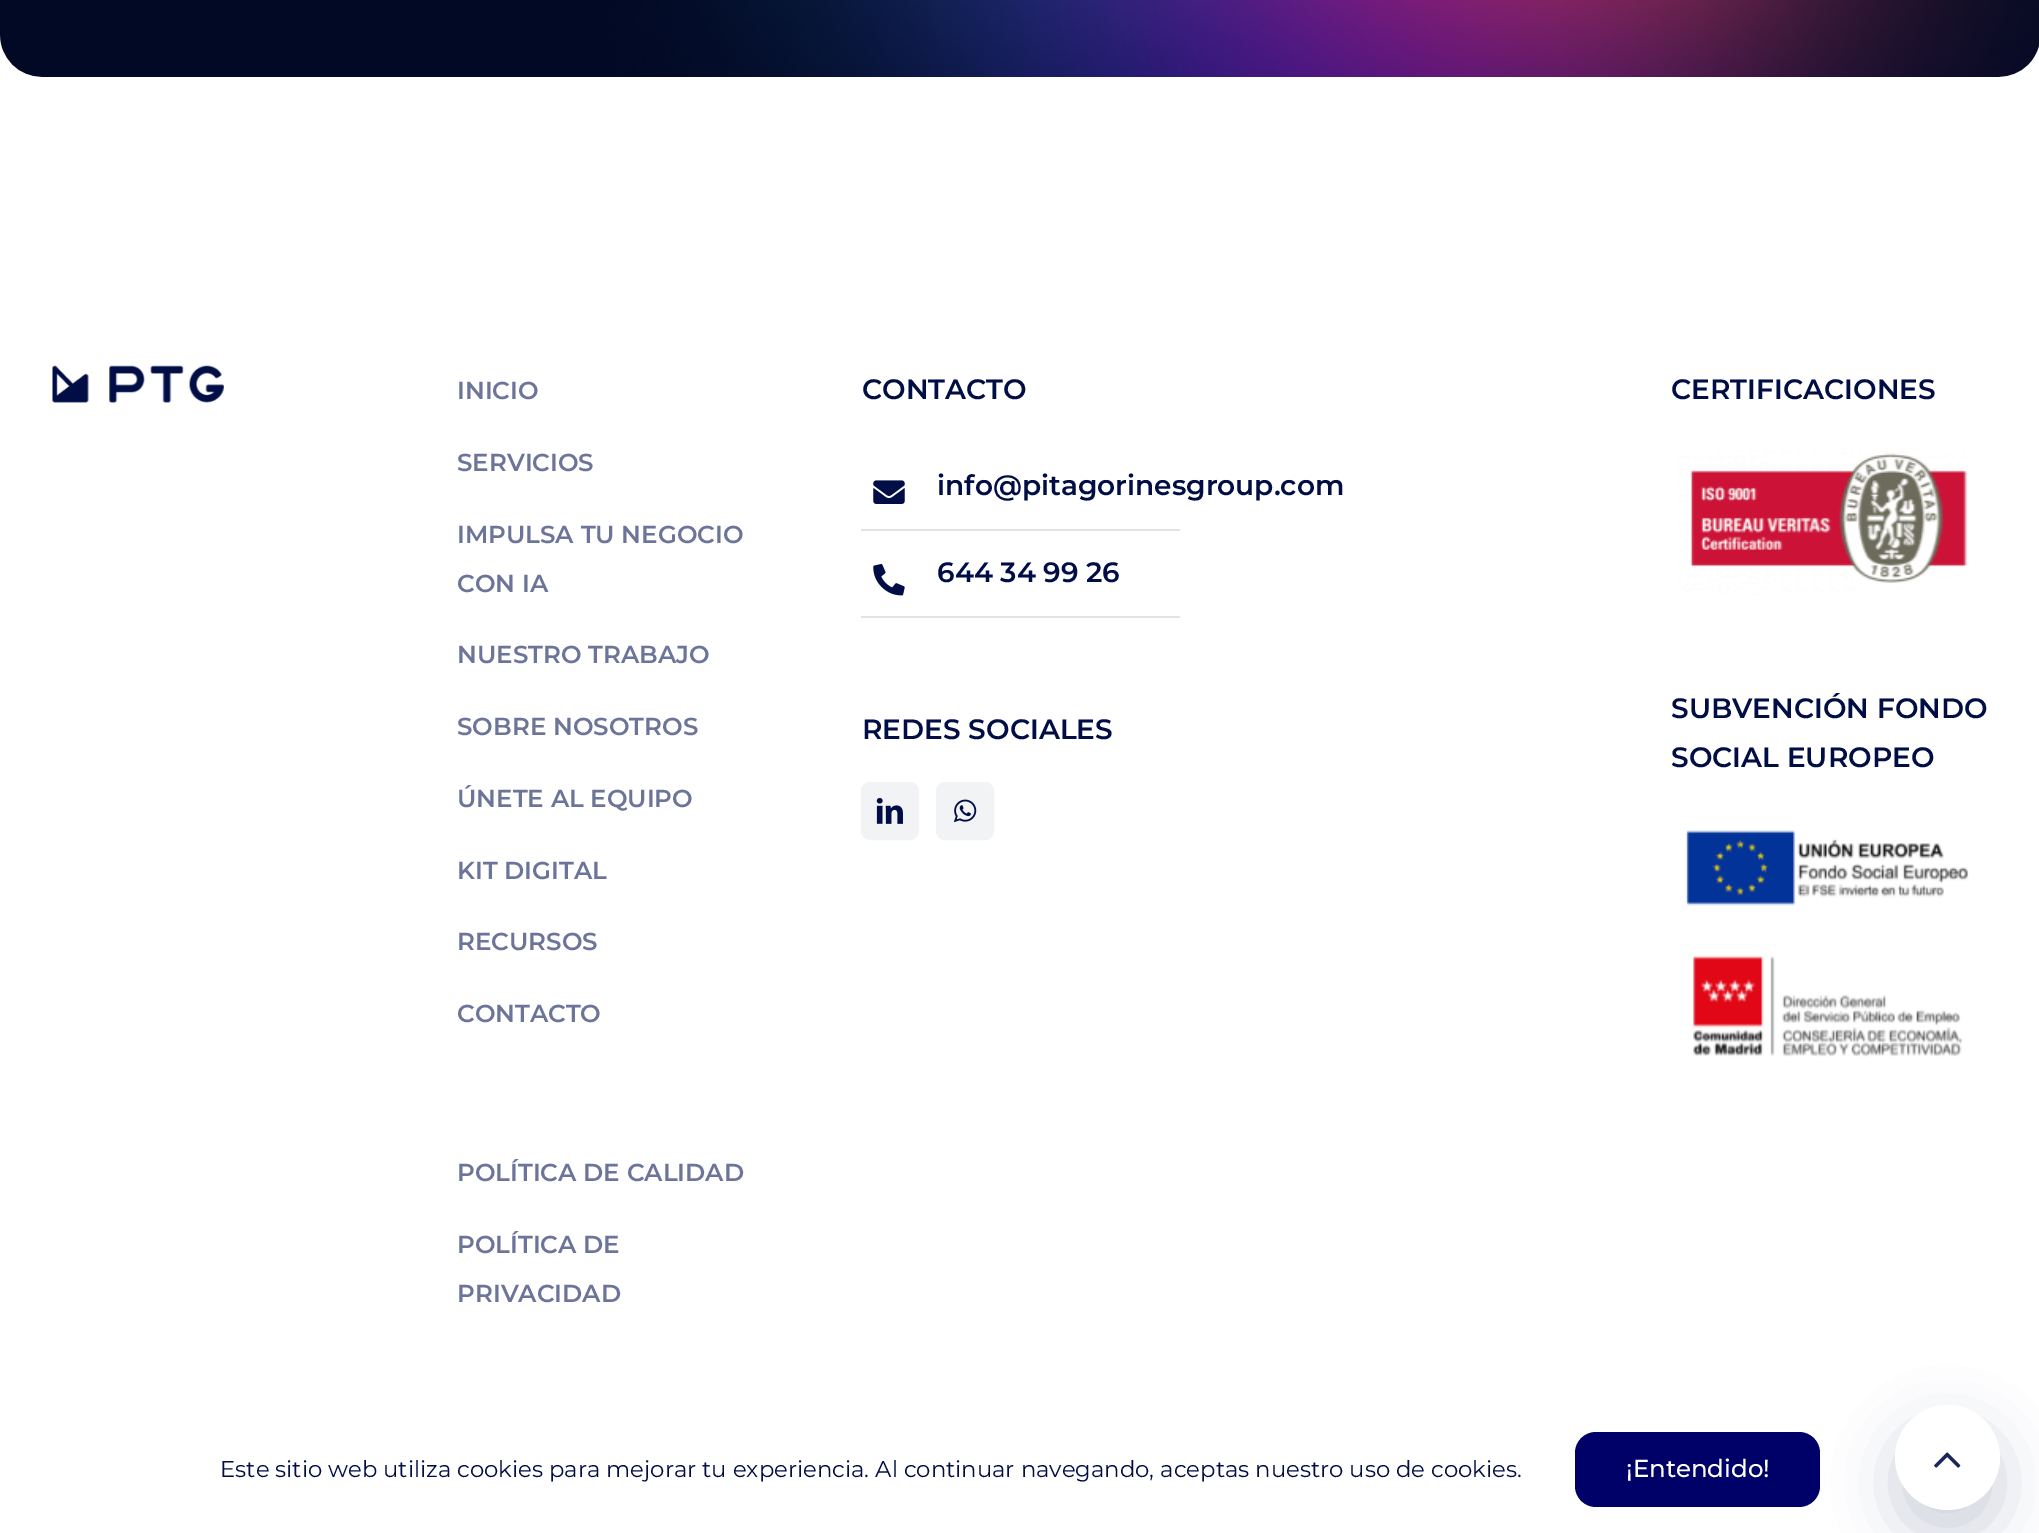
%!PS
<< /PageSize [2039 1533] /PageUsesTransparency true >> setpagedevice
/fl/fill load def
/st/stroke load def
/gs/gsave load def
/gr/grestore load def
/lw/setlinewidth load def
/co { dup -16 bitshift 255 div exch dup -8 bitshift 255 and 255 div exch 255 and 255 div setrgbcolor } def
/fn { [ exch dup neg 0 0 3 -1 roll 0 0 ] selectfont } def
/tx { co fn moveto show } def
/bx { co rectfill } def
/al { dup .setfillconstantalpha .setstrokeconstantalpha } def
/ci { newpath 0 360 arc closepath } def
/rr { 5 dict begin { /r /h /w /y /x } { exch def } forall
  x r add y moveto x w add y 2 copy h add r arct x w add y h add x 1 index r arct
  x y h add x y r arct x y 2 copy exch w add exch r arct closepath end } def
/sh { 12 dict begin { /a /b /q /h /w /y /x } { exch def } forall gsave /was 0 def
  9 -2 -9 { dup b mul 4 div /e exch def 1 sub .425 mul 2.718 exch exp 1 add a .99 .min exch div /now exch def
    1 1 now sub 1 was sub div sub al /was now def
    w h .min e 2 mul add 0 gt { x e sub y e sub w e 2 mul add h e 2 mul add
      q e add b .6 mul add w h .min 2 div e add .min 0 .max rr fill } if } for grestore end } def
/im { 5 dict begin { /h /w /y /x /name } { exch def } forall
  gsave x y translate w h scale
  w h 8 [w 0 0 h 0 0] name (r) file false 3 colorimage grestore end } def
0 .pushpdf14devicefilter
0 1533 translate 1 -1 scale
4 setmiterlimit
0 0 2039 1533 16#FFFFFF bx
(media/1.raw) 0 0 2039 77 im
(media/2.raw) 52 365 172 38 im
861 529 319 2 16#E2E2E2 bx
(media/3.raw) 873 480 32 24 im
861 616 319 2 16#E2E2E2 bx
(media/4.raw) 873 564 32 32 im
16#F2F3F5 co
862 783 56 56 8 rr gs fl gr
2 lw
st
(media/5.raw) 876 798 27 26 im
937 783 56 56 8 rr gs fl gr
st
(media/6.raw) 953 799 24 24 im
(media/7.raw) 1678 448 289 147 im
(media/8.raw) 1686 830 283 227 im
16#000069 co
1575 1432 245 75 21 rr fl
16#1A2658 co
1895 1430 105 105 52.5 29 .2 sh
16#FFFFFF co
1947.5 1457.5 52.5 ci fl
(media/9.raw) 1934 1452 27 16 im
(INICIO) 457 399 /Montserrat-SemiBold 24.5 16#6C7599 tx
(SERVICIOS) 457 471 /Montserrat-SemiBold 24.5 16#6C7599 tx
(IMPULSA TU NEGOCIO) 457 543 /Montserrat-SemiBold 24.5 16#6C7599 tx
(CON IA) 457 592 /Montserrat-SemiBold 24.5 16#6C7599 tx
(NUESTRO TRABAJO) 457 663 /Montserrat-SemiBold 24.5 16#6C7599 tx
(SOBRE NOSOTROS) 457 735 /Montserrat-SemiBold 24.5 16#6C7599 tx
(ÚNETE AL EQUIPO) 457 807 /Montserrat-SemiBold 24.5 16#6C7599 tx
(KIT DIGITAL) 457 879 /Montserrat-SemiBold 24.5 16#6C7599 tx
(RECURSOS) 457 950 /Montserrat-SemiBold 24.5 16#6C7599 tx
(CONTACTO) 457 1022 /Montserrat-SemiBold 24.5 16#6C7599 tx
(POLÍTICA DE CALIDAD) 457 1181 /Montserrat-SemiBold 24.5 16#6C7599 tx
(POLÍTICA DE) 457 1253 /Montserrat-SemiBold 24.5 16#6C7599 tx
(PRIVACIDAD) 457 1302 /Montserrat-SemiBold 24.5 16#6C7599 tx
(CONTACTO) 862 399 /Montserrat-SemiBold 28 16#000E45 tx
(info@pitagorinesgroup.com) 937 495 /Montserrat-SemiBold 28 16#000E45 tx
(644 34 99 26) 937 582 /Montserrat-SemiBold 28 16#000E45 tx
(REDES SOCIALES) 862 739 /Montserrat-SemiBold 28 16#000E45 tx
(CERTIFICACIONES) 1671 399 /Montserrat-SemiBold 28 16#000E45 tx
(SUBVENCIÓN FONDO) 1671 718 /Montserrat-SemiBold 28 16#000E45 tx
(SOCIAL EUROPEO) 1671 767 /Montserrat-SemiBold 28 16#000E45 tx
(Este sitio web utiliza cookies para mejorar tu experiencia. Al continuar navegando, aceptas nuestro uso de cookies.) 220 1477 /Montserrat-Regular 22.75 16#000E45 tx
(¡Entendido!) 1626 1477 /Montserrat-Medium 24.5 16#FFFFFF tx
.poppdf14devicefilter showpage
